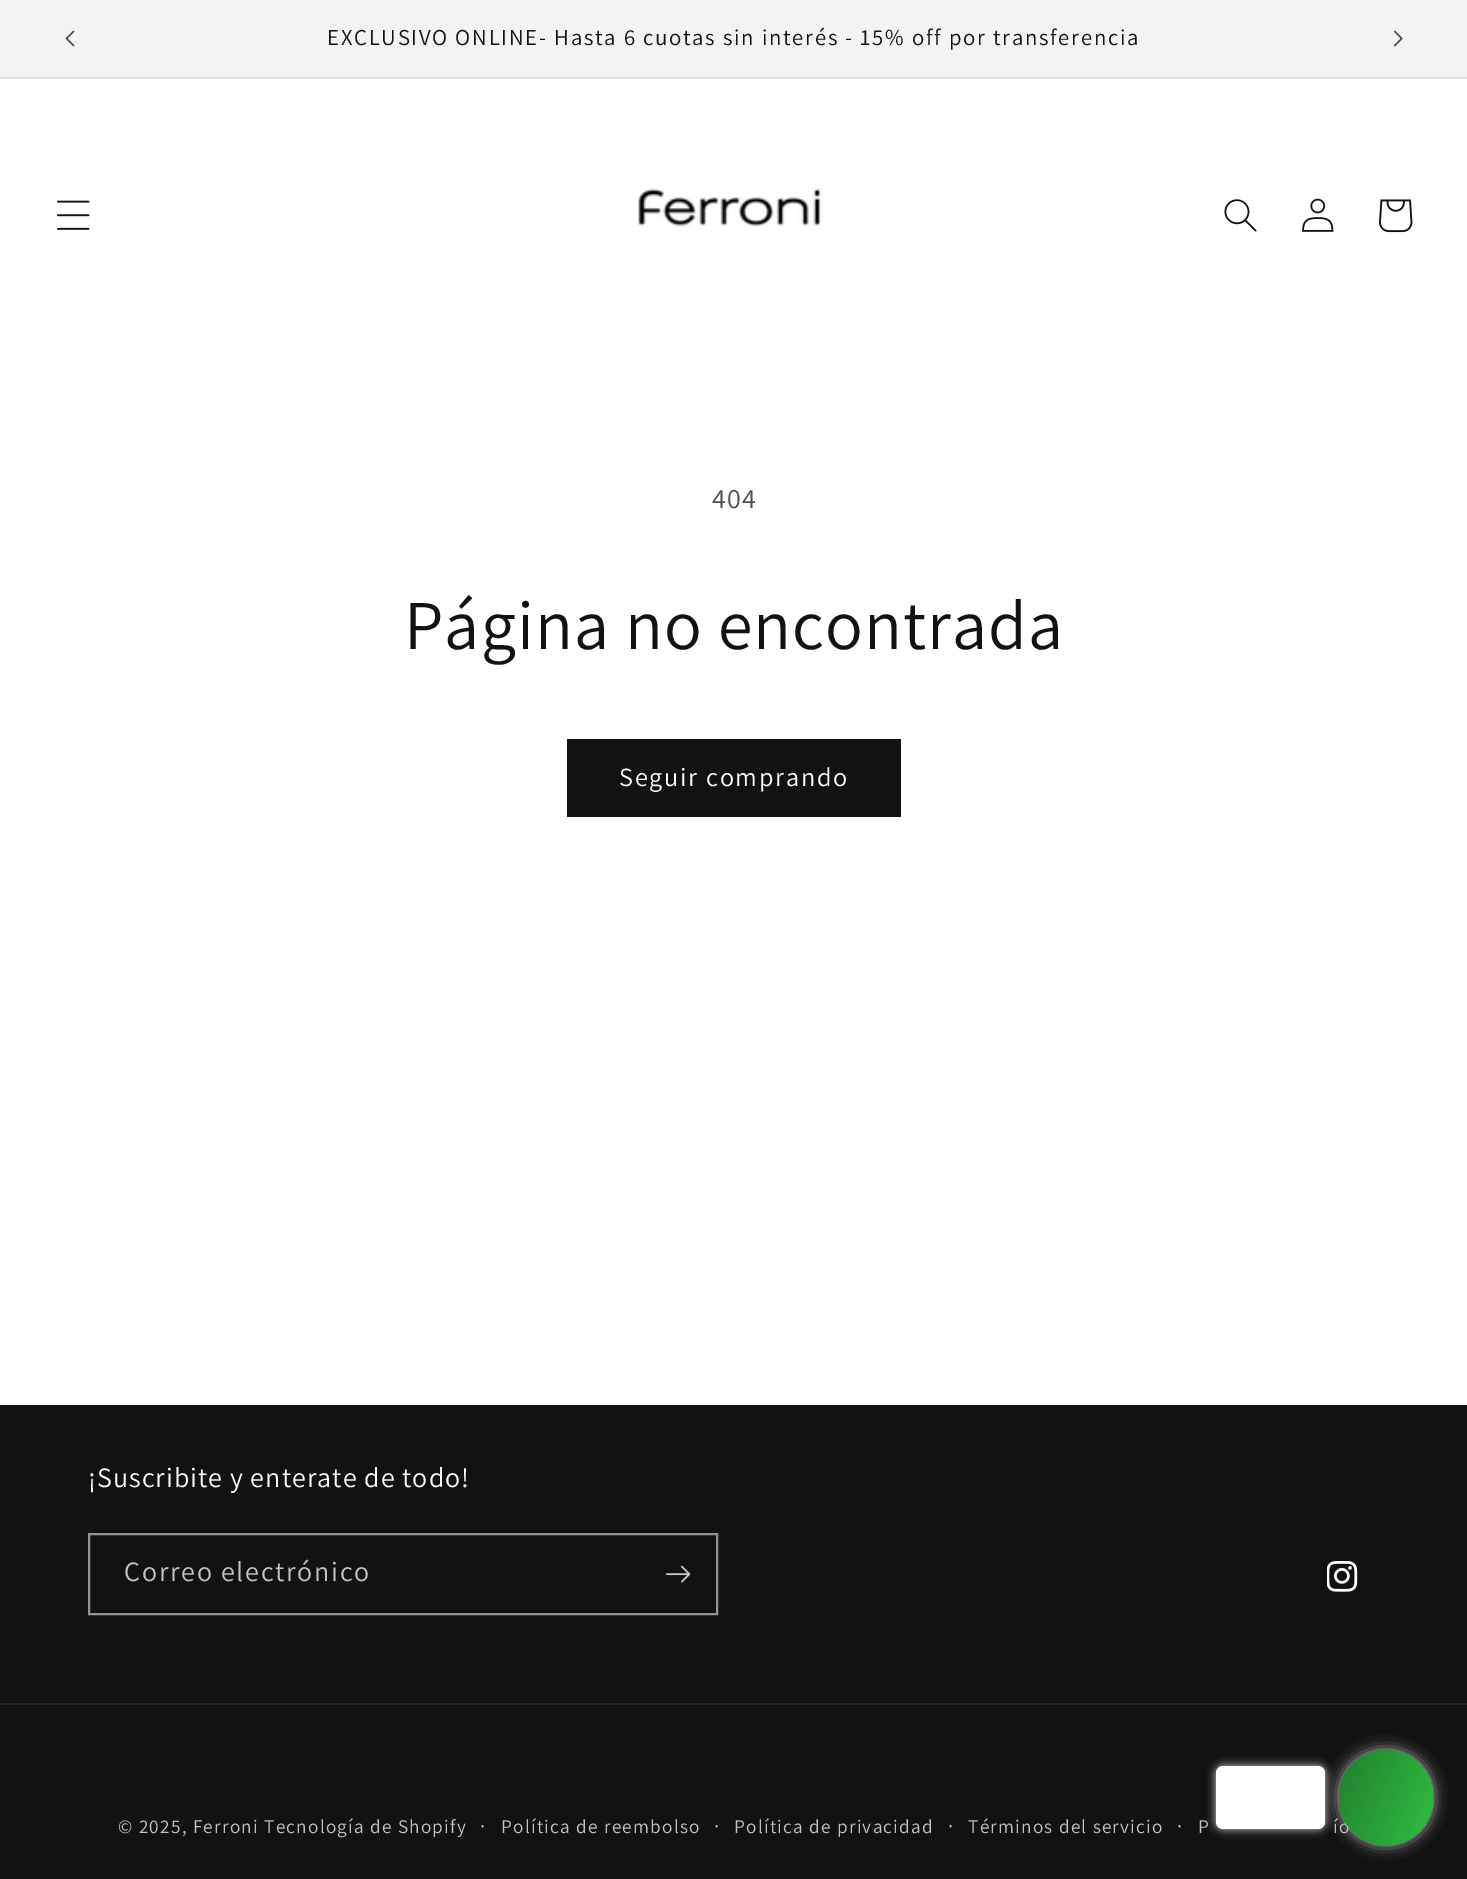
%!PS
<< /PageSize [1467 1879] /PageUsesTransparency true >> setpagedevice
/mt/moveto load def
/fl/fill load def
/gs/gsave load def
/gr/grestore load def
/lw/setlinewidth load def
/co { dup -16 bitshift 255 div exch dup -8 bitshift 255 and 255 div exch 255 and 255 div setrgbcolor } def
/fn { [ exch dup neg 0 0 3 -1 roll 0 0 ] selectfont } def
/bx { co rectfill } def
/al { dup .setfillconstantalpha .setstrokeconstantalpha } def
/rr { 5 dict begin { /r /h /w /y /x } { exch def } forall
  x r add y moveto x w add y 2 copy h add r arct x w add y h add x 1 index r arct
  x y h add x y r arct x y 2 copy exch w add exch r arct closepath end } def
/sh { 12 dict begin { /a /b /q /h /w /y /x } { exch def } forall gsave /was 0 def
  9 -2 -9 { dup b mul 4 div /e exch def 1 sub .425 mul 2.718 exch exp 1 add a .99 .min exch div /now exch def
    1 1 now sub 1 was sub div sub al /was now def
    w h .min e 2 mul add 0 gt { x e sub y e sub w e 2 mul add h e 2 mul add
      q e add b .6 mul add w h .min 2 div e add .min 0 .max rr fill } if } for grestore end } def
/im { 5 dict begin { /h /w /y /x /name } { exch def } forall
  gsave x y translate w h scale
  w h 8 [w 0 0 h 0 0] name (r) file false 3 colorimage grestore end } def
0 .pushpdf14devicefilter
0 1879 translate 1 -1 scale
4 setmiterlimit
0 0 1467 1879 16#FFFFFF bx
0 0 1467 77 16#F3F3F3 bx
0 77 1467 2 16#E1E1E1 bx
(media/1.raw) 65 30 10 17 im
(media/2.raw) 1393 30 10 17 im
(media/3.raw) 57 200 33 30 im
(media/4.raw) 638 188 186 39 im
(media/5.raw) 1224 199 33 33 im
(media/6.raw) 1302 198 32 34 im
(media/7.raw) 1379 199 34 34 im
567 739 334 78 16#121212 bx
0 1405 1467 474 16#121212 bx
16#949494 co
2 lw
89 1534 628 80 rectstroke
(media/8.raw) 666 1565 25 18 im
(media/9.raw) 1327 1561 31 31 im
0 1703 1467 2 16#252525 bx
16#D3D3D3 co
1216 1766 109 63 7 4.5 1 sh
16#FFFFFF co
1216 1766 109 63 7 rr fl
16#C2C2C2 co
1339 1750 94 95 47 7 1 sh
/Assistant-Regular 22.75 fn
16#121212 co
327 45 mt 1.75 0 (EXCLUSIVO ONLINE- Hasta 6 cuotas sin interés - 15% off por transferencia) ashow
/Assistant-Regular 28 fn
16#4D4D4D co
712 508 mt 1.05 0 (404) ashow
/Assistant-Regular 70 fn
16#121212 co
404 649 mt 1.05 0 (Página no encontrada) ashow
/Assistant-Regular 26.25 fn
16#FFFFFF co
619 786 mt 1.75 0 (Seguir comprando) ashow
/Assistant-Regular 28 fn
88 1487 mt 1.05 0 (¡Suscribite y enterate de todo!) ashow
16#C4C4C4 co
124 1581 mt 1.75 0 (Correo electrónico) ashow
/Assistant-Regular 19.25 fn
118 1833 mt 1.25 0 (© 2025, Ferroni) ashow
264 1833 mt 1.25 0 (Tecnología de Shopify) ashow
/Assistant-Regular 21 fn
480 1833 mt 1.25 0 (·) ashow
/Assistant-Regular 19.25 fn
501 1833 mt 1.25 0 (Política de reembolso) ashow
/Assistant-Regular 21 fn
714 1833 mt 1.25 0 (·) ashow
/Assistant-Regular 19.25 fn
734 1833 mt 1.25 0 (Política de privacidad) ashow
/Assistant-Regular 21 fn
948 1833 mt 1.25 0 (·) ashow
/Assistant-Regular 19.25 fn
968 1833 mt 1.25 0 (Términos del servicio) ashow
/Assistant-Regular 21 fn
1177 1833 mt 1.25 0 (·) ashow
/Assistant-Regular 19.25 fn
1198 1833 mt 1.25 0 (P) ashow
1333 1833 mt 1.25 0 (ío) ashow
gs 1339 1750 94 95 47 rr clip newpath
<< /ShadingType 2 /ColorSpace /DeviceRGB /Coords [1329 1774 1443 1821] /Extend [true true] /Function << /FunctionType 2 /Domain [0 1] /C0 [.125 .502 .173] /C1 [.188 .749 .259] /N 1 >> >> shfill gr
.poppdf14devicefilter showpage
